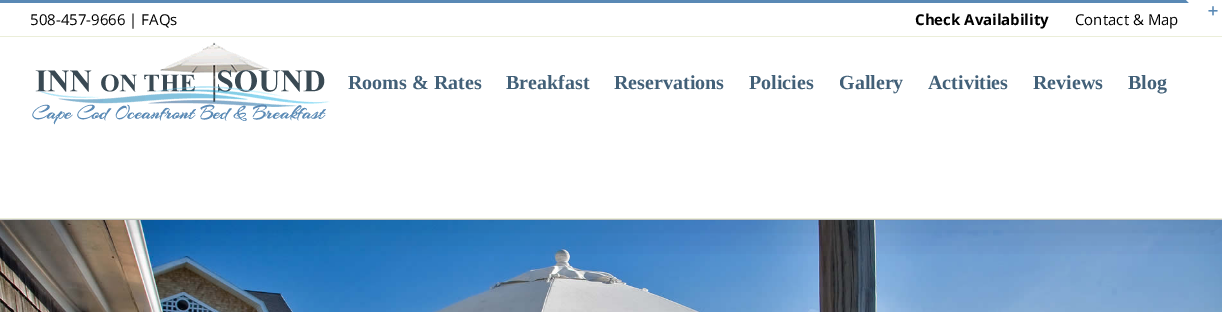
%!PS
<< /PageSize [1222 312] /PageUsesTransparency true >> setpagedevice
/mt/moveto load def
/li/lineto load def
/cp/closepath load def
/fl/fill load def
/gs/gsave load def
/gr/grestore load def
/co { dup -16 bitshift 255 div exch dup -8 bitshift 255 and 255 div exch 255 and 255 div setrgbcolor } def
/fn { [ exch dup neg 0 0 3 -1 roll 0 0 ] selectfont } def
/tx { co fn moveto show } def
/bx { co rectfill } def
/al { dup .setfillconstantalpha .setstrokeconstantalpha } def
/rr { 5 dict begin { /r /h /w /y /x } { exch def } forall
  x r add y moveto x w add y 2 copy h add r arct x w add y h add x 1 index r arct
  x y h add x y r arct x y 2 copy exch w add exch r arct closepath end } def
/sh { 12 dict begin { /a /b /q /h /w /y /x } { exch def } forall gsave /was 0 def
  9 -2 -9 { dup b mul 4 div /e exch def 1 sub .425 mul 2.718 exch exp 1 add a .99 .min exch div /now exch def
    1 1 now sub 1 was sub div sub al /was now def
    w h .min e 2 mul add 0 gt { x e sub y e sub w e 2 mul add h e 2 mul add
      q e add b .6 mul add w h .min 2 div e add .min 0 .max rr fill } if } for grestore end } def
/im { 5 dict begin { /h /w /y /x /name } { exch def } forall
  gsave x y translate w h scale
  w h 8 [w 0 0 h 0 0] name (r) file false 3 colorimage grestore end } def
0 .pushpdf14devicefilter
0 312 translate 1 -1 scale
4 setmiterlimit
0 0 1222 312 16#FFFFFF bx
0 219 1222 1 16#D2D3D4 bx
(media/3.raw) 0 220 1222 92 im
gs
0 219 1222 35 rectclip
16#000000 co
2 12 1218 215 0 25 .14 sh
gr
0 0 1189 3 16#5989B5 bx
0 36 1222 1 16#EBEED9 bx
0 218 1222 1 16#EBEED9 bx
(media/1.raw) 32 42 298 83 im
16#FFFFFF co
1186 0 mt 1222 0 li 1222 36 li cp fl
(media/2.raw) 1208 6 10 10 im
(508-457-9666 | FAQs) 30 25 /OpenSans-Regular 15 16#000000 tx
(Check Availability) 915 25 /OpenSans-Bold 15 16#000000 tx
(Contact & Map) 1075 25 /OpenSans-Regular 15 16#000000 tx
(Rooms & Rates) 348 89 /LiberationSerif-Bold 20 16#426078 tx
(Breakfast) 506 89 /LiberationSerif-Bold 20 16#426078 tx
(Reservations) 614 89 /LiberationSerif-Bold 20 16#426078 tx
(Policies) 749 89 /LiberationSerif-Bold 20 16#426078 tx
(Gallery) 839 89 /LiberationSerif-Bold 20 16#426078 tx
(Activities) 928 89 /LiberationSerif-Bold 20 16#426078 tx
(Reviews) 1033 89 /LiberationSerif-Bold 20 16#426078 tx
(Blog) 1128 89 /LiberationSerif-Bold 20 16#426078 tx
.poppdf14devicefilter showpage
